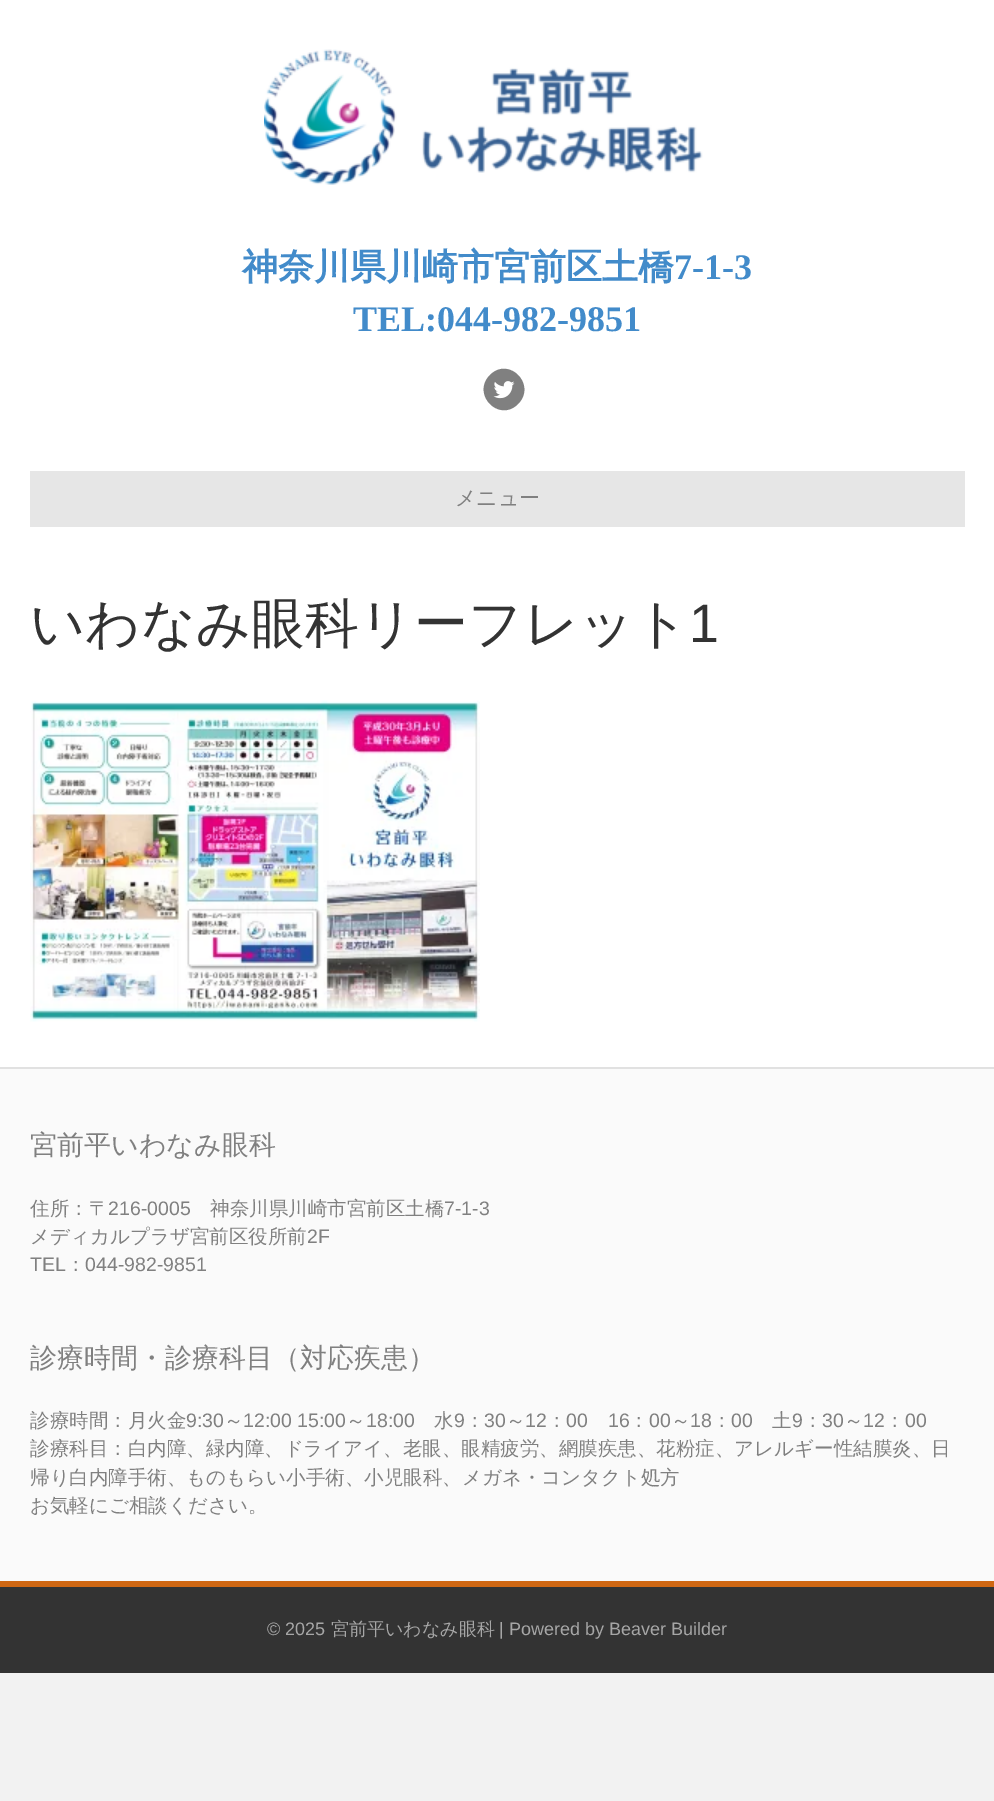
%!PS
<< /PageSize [994 1801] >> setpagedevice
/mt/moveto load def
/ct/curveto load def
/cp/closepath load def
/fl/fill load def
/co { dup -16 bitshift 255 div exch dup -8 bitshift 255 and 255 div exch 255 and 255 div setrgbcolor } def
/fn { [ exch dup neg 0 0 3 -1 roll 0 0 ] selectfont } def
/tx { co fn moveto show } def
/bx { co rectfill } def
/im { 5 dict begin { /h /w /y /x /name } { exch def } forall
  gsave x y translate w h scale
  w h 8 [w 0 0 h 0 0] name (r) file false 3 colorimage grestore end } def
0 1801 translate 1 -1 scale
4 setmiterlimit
0 0 994 1801 16#F2F2F2 bx
0 0 994 1067 16#FFFFFF bx
(media/1.raw) 264 49 439 136 im
16#808080 co
490 375 mt 509 356 537 385 518 404 ct 499 423 471 394 490 375 ct cp fl
(media/2.raw) 493 381 22 18 im
30 471 935 56 16#E6E6E6 bx
(media/3.raw) 30 700 450 322 im
0 1069 994 512 16#FAFAFA bx
0 1067 994 2 16#E1E1E1 bx
0 1587 994 86 16#333333 bx
0 1581 994 6 16#CF6713 bx
(神奈川県川崎市宮前区土橋) 242 279 /WenQuanYiZenHei-Bold 36 16#428BCA tx
(7-1-3) 674 279 /LiberationSerif-Bold 36 16#428BCA tx
(TEL:044-982-9851) 353 331 /LiberationSerif-Bold 36 16#428BCA tx
(メニュー) 455 505 /WenQuanYiZenHei-Medium 21 16#808080 tx
(いわなみ眼科リーフレット) 30 642 /WenQuanYiZenHei-Medium 54 16#333333 tx
(1) 689 642 /LiberationSans-Regular 54 16#333333 tx
(宮前平いわなみ眼科) 30 1154 /WenQuanYiZenHei-Medium 27 16#808080 tx
(住所：〒) 30 1215 /WenQuanYiZenHei-Medium 19.5 16#808080 tx
(216-0005) 108 1215 /LiberationSans-Regular 19.5 16#808080 tx
(神奈川県川崎市宮前区土橋) 210 1215 /WenQuanYiZenHei-Medium 19.5 16#808080 tx
(7-1-3) 444 1215 /LiberationSans-Regular 19.5 16#808080 tx
(メディカルプラザ宮前区役所前) 30 1243 /WenQuanYiZenHei-Medium 19.5 16#808080 tx
(2F) 307 1243 /LiberationSans-Regular 19.5 16#808080 tx
(TEL) 30 1271 /LiberationSans-Regular 19.5 16#808080 tx
(：) 66 1271 /WenQuanYiZenHei-Medium 19.5 16#808080 tx
(044-982-9851) 85 1271 /LiberationSans-Regular 19.5 16#808080 tx
(診療時間・診療科目（対応疾患）) 30 1367 /WenQuanYiZenHei-Medium 27 16#808080 tx
(診療時間：月火金) 30 1427 /WenQuanYiZenHei-Medium 19.5 16#808080 tx
(9:30) 186 1427 /LiberationSans-Regular 19.5 16#808080 tx
(～) 224 1427 /WenQuanYiZenHei-Medium 19.5 16#808080 tx
(12:00 15:00) 243 1427 /LiberationSans-Regular 19.5 16#808080 tx
(～) 346 1427 /WenQuanYiZenHei-Medium 19.5 16#808080 tx
(18:00) 366 1427 /LiberationSans-Regular 19.5 16#808080 tx
(水) 434 1427 /WenQuanYiZenHei-Medium 19.5 16#808080 tx
(9) 454 1427 /LiberationSans-Regular 19.5 16#808080 tx
(：) 465 1427 /WenQuanYiZenHei-Medium 19.5 16#808080 tx
(30) 484 1427 /LiberationSans-Regular 19.5 16#808080 tx
(～) 506 1427 /WenQuanYiZenHei-Medium 19.5 16#808080 tx
(12) 525 1427 /LiberationSans-Regular 19.5 16#808080 tx
(：) 547 1427 /WenQuanYiZenHei-Medium 19.5 16#808080 tx
(00) 566 1427 /LiberationSans-Regular 19.5 16#808080 tx
(16) 608 1427 /LiberationSans-Regular 19.5 16#808080 tx
(：) 629 1427 /WenQuanYiZenHei-Medium 19.5 16#808080 tx
(00) 649 1427 /LiberationSans-Regular 19.5 16#808080 tx
(～) 671 1427 /WenQuanYiZenHei-Medium 19.5 16#808080 tx
(18) 690 1427 /LiberationSans-Regular 19.5 16#808080 tx
(：) 712 1427 /WenQuanYiZenHei-Medium 19.5 16#808080 tx
(00) 731 1427 /LiberationSans-Regular 19.5 16#808080 tx
(土) 772 1427 /WenQuanYiZenHei-Medium 19.5 16#808080 tx
(9) 792 1427 /LiberationSans-Regular 19.5 16#808080 tx
(：) 803 1427 /WenQuanYiZenHei-Medium 19.5 16#808080 tx
(30) 822 1427 /LiberationSans-Regular 19.5 16#808080 tx
(～) 844 1427 /WenQuanYiZenHei-Medium 19.5 16#808080 tx
(12) 863 1427 /LiberationSans-Regular 19.5 16#808080 tx
(：) 885 1427 /WenQuanYiZenHei-Medium 19.5 16#808080 tx
(00) 905 1427 /LiberationSans-Regular 19.5 16#808080 tx
(診療科目：白内障、緑内障、ドライアイ、老眼、眼精疲労、網膜疾患、花粉症、アレルギー性結膜炎、日) 30 1455 /WenQuanYiZenHei-Medium 19.5 16#808080 tx
(帰り白内障手術、ものもらい小手術、小児眼科、メガネ・コンタクト処方) 30 1484 /WenQuanYiZenHei-Medium 19.5 16#808080 tx
(お気軽にご相談ください。) 30 1512 /WenQuanYiZenHei-Medium 19.5 16#808080 tx
(© 2025) 267 1635 /LiberationSans-Regular 18 16#A6A6A6 tx
(宮前平いわなみ眼科) 331 1635 /WenQuanYiZenHei-Medium 18 16#A6A6A6 tx
(| Powered by Beaver Builder) 499 1635 /LiberationSans-Regular 18 16#A6A6A6 tx
showpage
